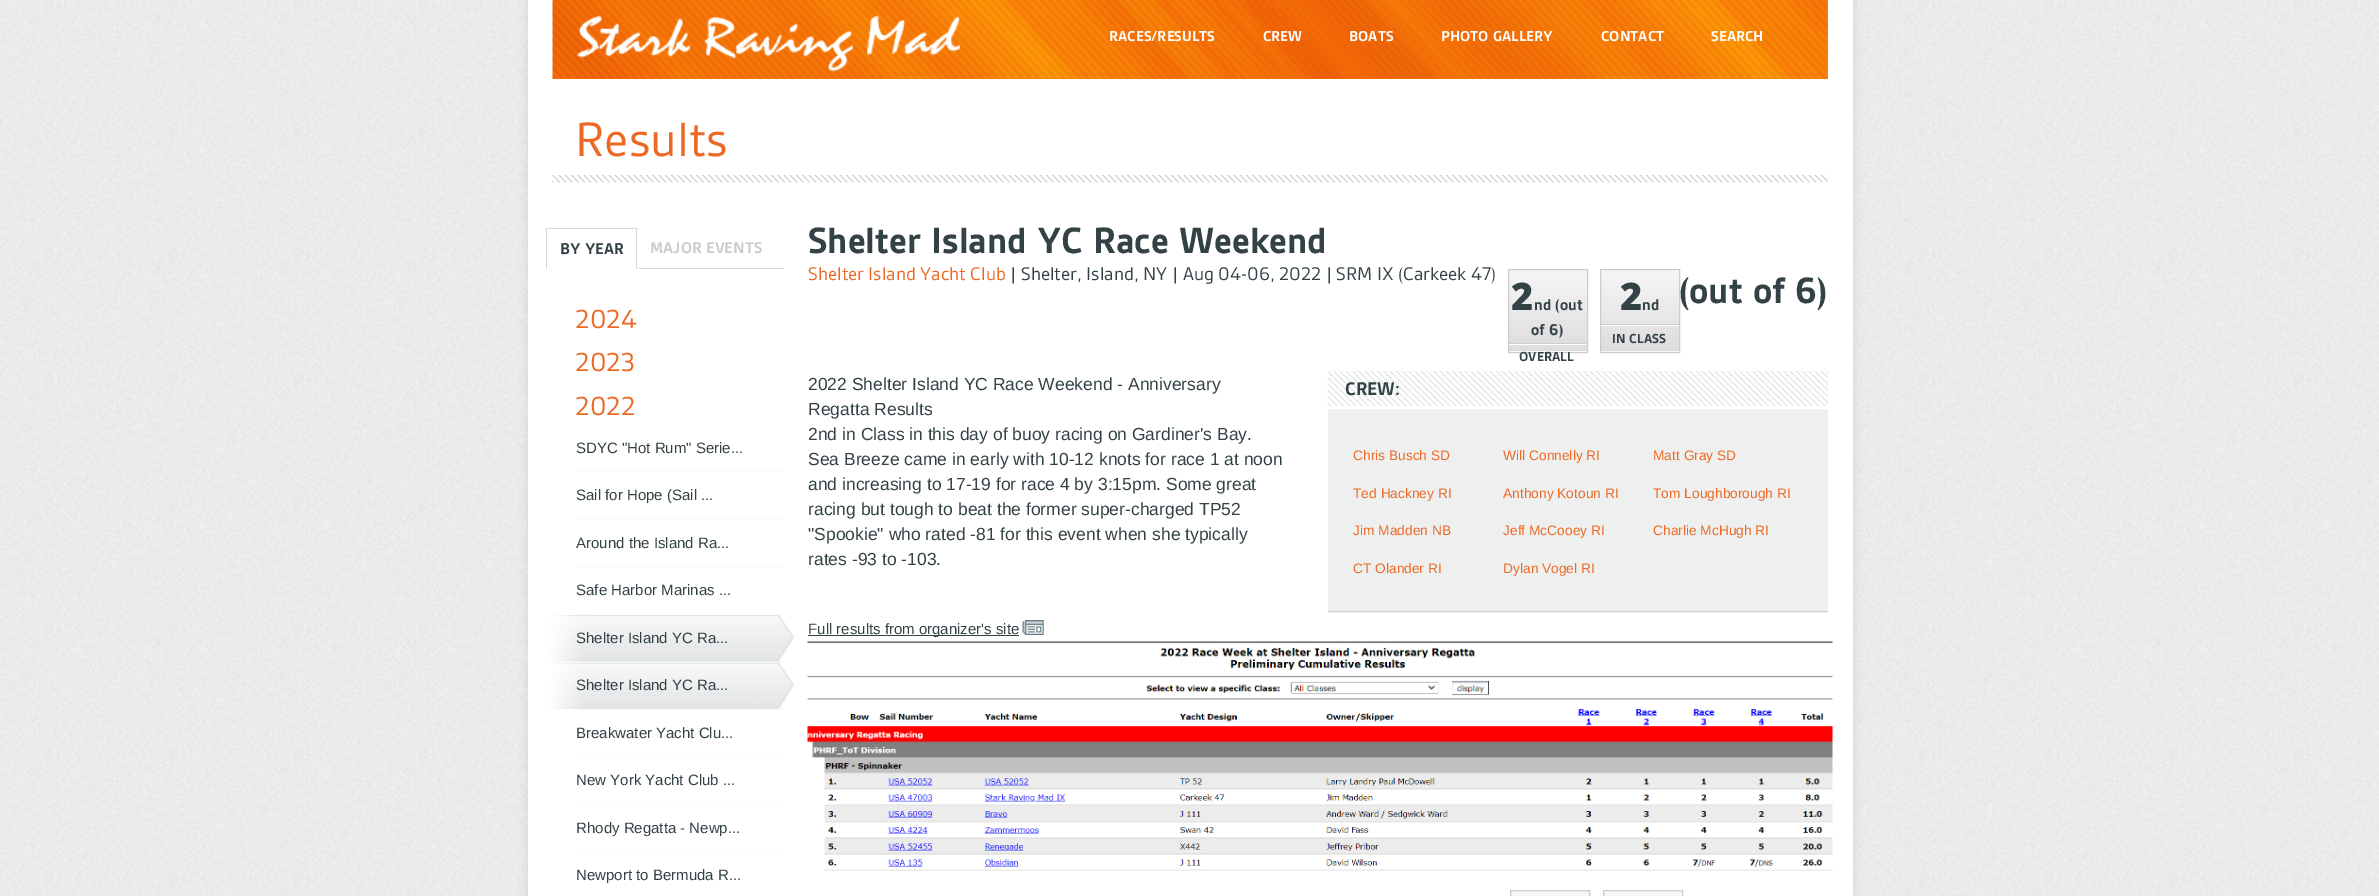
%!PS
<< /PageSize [2379 896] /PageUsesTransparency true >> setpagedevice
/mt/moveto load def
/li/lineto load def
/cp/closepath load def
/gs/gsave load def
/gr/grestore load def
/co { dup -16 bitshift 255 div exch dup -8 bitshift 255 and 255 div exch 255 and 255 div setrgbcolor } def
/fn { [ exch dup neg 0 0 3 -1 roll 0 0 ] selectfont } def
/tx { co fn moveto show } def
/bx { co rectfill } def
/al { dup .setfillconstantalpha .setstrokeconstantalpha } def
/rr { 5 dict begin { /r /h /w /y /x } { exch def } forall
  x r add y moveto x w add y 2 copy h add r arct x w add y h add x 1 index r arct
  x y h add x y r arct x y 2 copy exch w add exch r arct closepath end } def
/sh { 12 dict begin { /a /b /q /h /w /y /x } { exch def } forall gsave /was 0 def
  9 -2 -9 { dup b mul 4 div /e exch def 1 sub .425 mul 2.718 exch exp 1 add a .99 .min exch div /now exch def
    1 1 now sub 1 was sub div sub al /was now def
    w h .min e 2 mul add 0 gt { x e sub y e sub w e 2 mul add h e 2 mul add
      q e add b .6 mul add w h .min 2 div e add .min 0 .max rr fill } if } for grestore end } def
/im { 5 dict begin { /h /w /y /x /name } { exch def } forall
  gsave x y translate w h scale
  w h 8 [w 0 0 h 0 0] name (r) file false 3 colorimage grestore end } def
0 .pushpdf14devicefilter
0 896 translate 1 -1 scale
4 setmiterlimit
0 0 2379 896 16#FFFFFF bx
(media/1.raw) 0 0 2379 896 im
16#000000 co
528 0 1325 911 0 5 .1 sh
528 0 1325 896 16#FFFFFF bx
553 0 1275 79 16#F98707 bx
(media/2.raw) 552 0 1276 79 im
(media/3.raw) 577 15 383 57 im
(media/4.raw) 552 175 1276 8 im
638 268 146 1 16#D4DADA bx
546 228 92 1 16#D4DADA bx
636 228 1 41 16#D4DADA bx
546 228 1 41 16#D4DADA bx
575 471 209 1 16#F9F9F9 bx
575 519 209 1 16#F9F9F9 bx
575 566 209 1 16#F9F9F9 bx
575 614 209 1 16#F9F9F9 bx
575 661 209 1 16#F9F9F9 bx
(media/5.raw) 550 615 244 47 im
575 709 209 1 16#F9F9F9 bx
(media/6.raw) 551 662 243 47 im
575 756 209 1 16#F9F9F9 bx
575 804 209 1 16#F9F9F9 bx
575 851 209 1 16#F9F9F9 bx
gs 1509 270 mt 1587 270 li 1587 351 li 1509 351 li cp clip newpath
<< /ShadingType 2 /ColorSpace /DeviceRGB /Coords [1548 270 1548 351] /Extend [true true] /Function << /FunctionType 2 /Domain [0 1] /C0 [.965 .965 .965] /C1 [.867 .867 .867] /N 1 >> >> shfill gr
gs 1508 351 mt 1588 351 li 1588 352 li 1508 352 li cp clip newpath
<< /ShadingType 2 /ColorSpace /DeviceRGB /Coords [1548 351 1548 433] /Extend [true true] /Function << /FunctionType 2 /Domain [0 1] /C0 [.965 .965 .965] /C1 [.867 .867 .867] /N 1 >> >> shfill gr
16#CCCCCC co
1508.5 269.5 79 83 rectstroke
1509 343 77 1 16#CCCCCC bx
1509 344 77 1 16#FFFFFF bx
gs 1601 270 mt 1679 270 li 1679 351 li 1601 351 li cp clip newpath
<< /ShadingType 2 /ColorSpace /DeviceRGB /Coords [1640 270 1640 351] /Extend [true true] /Function << /FunctionType 2 /Domain [0 1] /C0 [.965 .965 .965] /C1 [.867 .867 .867] /N 1 >> >> shfill gr
gs 1600 351 mt 1680 351 li 1680 352 li 1600 352 li cp clip newpath
<< /ShadingType 2 /ColorSpace /DeviceRGB /Coords [1640 351 1640 433] /Extend [true true] /Function << /FunctionType 2 /Domain [0 1] /C0 [.965 .965 .965] /C1 [.867 .867 .867] /N 1 >> >> shfill gr
16#CCCCCC co
1600.5 269.5 79 83 rectstroke
1601 324 78 1 16#CCCCCC bx
1601 325 78 1 16#FFFFFF bx
808 635 211 1 16#334245 bx
(media/7.raw) 1022 620 22 15 im
1328 371 500 242 16#EEF0F0 bx
1328 611 500 1 16#CCCCCC bx
(media/8.raw) 1327 371 501 38 im
1328 406 500 3 16#FFFFFF bx
(media/9.raw) 807 641 1026 230 im
gs 1510 891 mt 1590 891 li 1590 896 li 1510 896 li cp clip newpath
<< /ShadingType 2 /ColorSpace /DeviceRGB /Coords [1550 891 1550 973] /Extend [true true] /Function << /FunctionType 2 /Domain [0 1] /C0 [.965 .965 .965] /C1 [.867 .867 .867] /N 1 >> >> shfill gr
16#CCCCCC co
1510.5 890.5 79 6 rectstroke
gs 1603 891 mt 1683 891 li 1683 896 li 1603 896 li cp clip newpath
<< /ShadingType 2 /ColorSpace /DeviceRGB /Coords [1643 891 1643 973] /Extend [true true] /Function << /FunctionType 2 /Domain [0 1] /C0 [.965 .965 .965] /C1 [.867 .867 .867] /N 1 >> >> shfill gr
1603.5 890.5 79 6 rectstroke
(RACES/RESULTS) 1109 41 /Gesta-Bold 13.75 16#FFFFFF tx
(CREW) 1263 41 /Gesta-Bold 13.75 16#FFFFFF tx
(BOATS) 1349 41 /Gesta-Bold 13.75 16#FFFFFF tx
(PHOTO GALLERY) 1441 41 /Gesta-Bold 13.75 16#FFFFFF tx
(CONTACT) 1601 41 /Gesta-Bold 13.75 16#FFFFFF tx
(SEARCH) 1711 41 /Gesta-Bold 13.75 16#FFFFFF tx
(Results) 575 156 /Gesta-Regular 46 16#EB6924 tx
(BY YEAR) 560 254 /Gesta-Bold 15 16#334245 tx
(MAJOR EVENTS) 650 253 /Gesta-Bold 15 16#CCCCCC tx
(2024) 575 328 /Gesta-Regular 25 16#EB6924 tx
(2023) 575 371 /Gesta-Regular 25 16#EB6924 tx
(2022) 575 415 /Gesta-Regular 25 16#EB6924 tx
(SDYC "Hot Rum" Serie...) 576 453 /LiberationSans-Regular 15 16#334245 tx
(Sail for Hope \(Sail ...) 576 500 /LiberationSans-Regular 15 16#334245 tx
(Around the Island Ra...) 576 548 /LiberationSans-Regular 15 16#334245 tx
(Safe Harbor Marinas ...) 576 595 /LiberationSans-Regular 15 16#334245 tx
(Shelter Island YC Ra...) 576 643 /LiberationSans-Regular 15 16#334245 tx
(Shelter Island YC Ra...) 576 690 /LiberationSans-Regular 15 16#334245 tx
(Breakwater Yacht Clu...) 576 738 /LiberationSans-Regular 15 16#334245 tx
(New York Yacht Club ...) 576 785 /LiberationSans-Regular 15 16#334245 tx
(Rhody Regatta - Newp...) 576 833 /LiberationSans-Regular 15 16#334245 tx
(Newport to Bermuda R...) 576 880 /LiberationSans-Regular 15 16#334245 tx
(Shelter Island YC Race Weekend) 808 253 /Gesta-Bold 35 16#334245 tx
(Shelter Island Yacht Club) 808 280 /Gesta-Regular 17.5 16#EB6924 tx
(| Shelter, Island, NY | Aug 04-06, 2022 | SRM IX \(Carkeek 47\)) 1010 280 /Gesta-Regular 17.5 16#334245 tx
(2) 1511 310 /NotoSans-Black 38 16#334245 tx
(nd \(out) 1534 310 /Gesta-Bold 15 16#334245 tx
(of 6\)) 1531 335 /Gesta-Bold 15 16#334245 tx
(OVERALL) 1519 361 /Gesta-Bold 12.5 16#334245 tx
(2) 1620 310 /NotoSans-Black 38 16#334245 tx
(nd) 1642 310 /Gesta-Bold 15 16#334245 tx
(IN CLASS) 1612 343 /Gesta-Bold 12.5 16#334245 tx
(\(out of 6\)) 1679 303 /Gesta-Bold 35 16#334245 tx
(2022 Shelter Island YC Race Weekend - Anniversary) 808 390 /LiberationSans-Regular 17.5 16#334245 tx
(Regatta Results) 808 415 /LiberationSans-Regular 17.5 16#334245 tx
(2nd in Class in this day of buoy racing on Gardiner's Bay.) 808 440 /LiberationSans-Regular 17.5 16#334245 tx
(Sea Breeze came in early with 10-12 knots for race 1 at noon) 808 465 /LiberationSans-Regular 17.5 16#334245 tx
(and increasing to 17-19 for race 4 by 3:15pm. Some great) 808 490 /LiberationSans-Regular 17.5 16#334245 tx
(racing but tough to beat the former super-charged TP52) 808 515 /LiberationSans-Regular 17.5 16#334245 tx
("Spookie" who rated -81 for this event when she typically) 808 540 /LiberationSans-Regular 17.5 16#334245 tx
(rates -93 to -103.) 808 565 /LiberationSans-Regular 17.5 16#334245 tx
(Full results from organizer's site) 808 634 /LiberationSans-Regular 15 16#334245 tx
(CREW:) 1345 395 /Gesta-Bold 17.5 16#334245 tx
(Chris Busch SD) 1353 460 /LiberationSans-Regular 13.75 16#EB6924 tx
(Will Connelly RI) 1503 460 /LiberationSans-Regular 13.75 16#EB6924 tx
(Matt Gray SD) 1653 460 /LiberationSans-Regular 13.75 16#EB6924 tx
(Ted Hackney RI) 1353 498 /LiberationSans-Regular 13.75 16#EB6924 tx
(Anthony Kotoun RI) 1503 498 /LiberationSans-Regular 13.75 16#EB6924 tx
(Tom Loughborough RI) 1653 498 /LiberationSans-Regular 13.75 16#EB6924 tx
(Jim Madden NB) 1353 535 /LiberationSans-Regular 13.75 16#EB6924 tx
(Jeff McCooey RI) 1503 535 /LiberationSans-Regular 13.75 16#EB6924 tx
(Charlie McHugh RI) 1653 535 /LiberationSans-Regular 13.75 16#EB6924 tx
(CT Olander RI) 1353 573 /LiberationSans-Regular 13.75 16#EB6924 tx
(Dylan Vogel RI) 1503 573 /LiberationSans-Regular 13.75 16#EB6924 tx
.poppdf14devicefilter showpage
